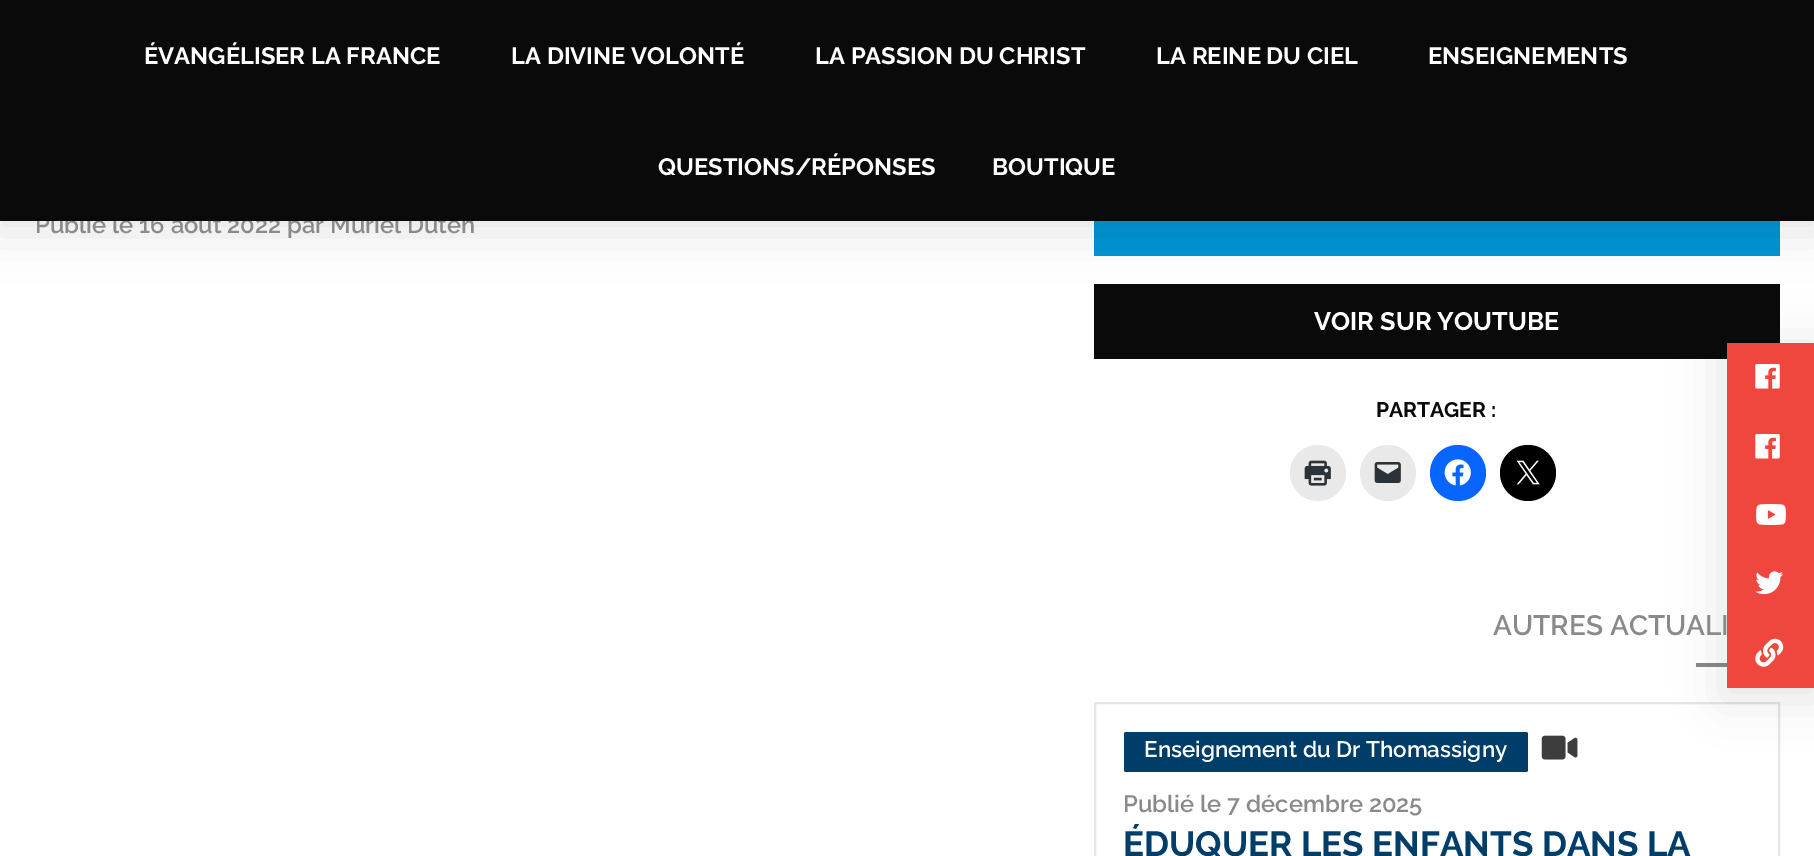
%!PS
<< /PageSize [1814 856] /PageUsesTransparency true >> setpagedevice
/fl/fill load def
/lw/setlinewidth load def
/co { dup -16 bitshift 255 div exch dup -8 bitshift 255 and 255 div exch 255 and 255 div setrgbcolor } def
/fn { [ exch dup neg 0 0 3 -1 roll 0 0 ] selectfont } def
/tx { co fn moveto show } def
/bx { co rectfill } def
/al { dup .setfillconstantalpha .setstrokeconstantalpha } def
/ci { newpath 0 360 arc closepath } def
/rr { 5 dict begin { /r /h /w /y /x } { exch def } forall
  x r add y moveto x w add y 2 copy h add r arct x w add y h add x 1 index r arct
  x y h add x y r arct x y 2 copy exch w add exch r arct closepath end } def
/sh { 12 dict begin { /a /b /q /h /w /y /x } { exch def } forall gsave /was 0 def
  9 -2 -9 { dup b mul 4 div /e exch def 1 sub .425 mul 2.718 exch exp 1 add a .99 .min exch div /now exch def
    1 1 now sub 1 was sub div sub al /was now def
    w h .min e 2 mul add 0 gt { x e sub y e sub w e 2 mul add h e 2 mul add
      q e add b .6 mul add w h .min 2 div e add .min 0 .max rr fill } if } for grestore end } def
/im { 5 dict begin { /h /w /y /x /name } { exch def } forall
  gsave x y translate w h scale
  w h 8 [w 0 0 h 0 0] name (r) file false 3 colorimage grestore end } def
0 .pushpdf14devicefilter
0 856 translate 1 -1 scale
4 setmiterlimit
0 0 1814 856 16#FFFFFF bx
1094 221 686 35 16#0195D3 bx
1094 284 686 75 16#0A0A0A bx
16#000000 co
-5 2 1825 231 0 23 .1 sh
1696 663 31 4 16#8A8A8A bx
16#E6E6E6 co
2 lw
1095 703 684 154 rectstroke
16#000000 co
1722 345 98 355 0 23 .1 sh
1727 343 87 345 16#EF463D bx
(media/1.raw) 1755 364 25 25 im
(media/1.raw) 1755 434 25 25 im
(media/2.raw) 1756 504 30 21 im
(media/3.raw) 1755 571 29 24 im
(media/4.raw) 1755 638 29 29 im
16#E9E9E9 co
1318 473 28 ci fl
(media/5.raw) 1304 460 27 26 im
1388 473 28 ci fl
(media/6.raw) 1374 462 27 21 im
16#0866FF co
1458 473 28 ci fl
(media/7.raw) 1444 459 27 27 im
16#000000 co
1528 473 28 ci fl
(media/8.raw) 1516 460 24 25 im
16#003E6A co
1124 732 404 40 2 rr fl
(media/9.raw) 1541 735 37 25 im
(Publié le 16 août 2022 par Muriel Duten) 35 233 /Raleway-SemiBold 23.75 16#8A8A8A tx
0 0 1814 221 16#0A0A0A bx
(BOUTIQUE) 992 175 /Raleway-Bold 23.75 16#FFFFFF tx
(QUESTIONS/RÉPONSES) 658 175 /Raleway-Bold 23.75 16#FFFFFF tx
(ENSEIGNEMENTS) 1428 64 /Raleway-Bold 23.75 16#FFFFFF tx
(LA REINE DU CIEL) 1156 64 /Raleway-Bold 23.75 16#FFFFFF tx
(LA PASSION DU CHRIST) 815 64 /Raleway-Bold 23.75 16#FFFFFF tx
(LA DIVINE VOLONTÉ) 511 64 /Raleway-Bold 23.75 16#FFFFFF tx
(ÉVANGÉLISER LA FRANCE) 144 64 /Raleway-Bold 23.75 16#FFFFFF tx
(VOIR SUR YOUTUBE) 1314 330 /Raleway-Bold 25.25 16#FFFFFF tx
(PARTAGER :) 1376 417 /Raleway-Bold 21 16#0A0A0A tx
(AUTRES ACTUALI) 1493 635 /Raleway-SemiBold 28 16#8A8A8A tx
(Enseignement du Dr Thomassigny) 1144 757 /Raleway-SemiBold 22.4 16#FFFFFF tx
(Publié le 7 décembre 2025) 1123 812 /Raleway-SemiBold 23.75 16#8A8A8A tx
(ÉDUQUER LES ENFANTS DANS LA) 1123 856 /Raleway-Bold 35 16#003E6A tx
.poppdf14devicefilter showpage
